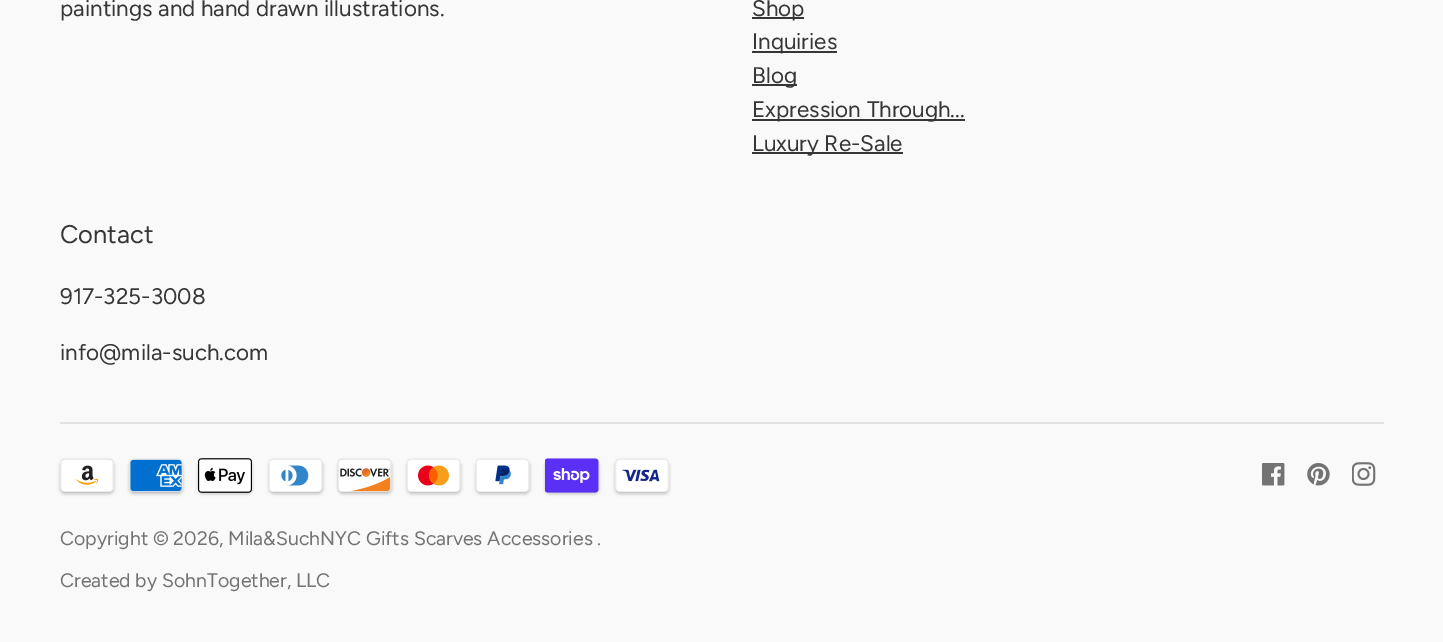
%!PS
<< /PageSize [1443 642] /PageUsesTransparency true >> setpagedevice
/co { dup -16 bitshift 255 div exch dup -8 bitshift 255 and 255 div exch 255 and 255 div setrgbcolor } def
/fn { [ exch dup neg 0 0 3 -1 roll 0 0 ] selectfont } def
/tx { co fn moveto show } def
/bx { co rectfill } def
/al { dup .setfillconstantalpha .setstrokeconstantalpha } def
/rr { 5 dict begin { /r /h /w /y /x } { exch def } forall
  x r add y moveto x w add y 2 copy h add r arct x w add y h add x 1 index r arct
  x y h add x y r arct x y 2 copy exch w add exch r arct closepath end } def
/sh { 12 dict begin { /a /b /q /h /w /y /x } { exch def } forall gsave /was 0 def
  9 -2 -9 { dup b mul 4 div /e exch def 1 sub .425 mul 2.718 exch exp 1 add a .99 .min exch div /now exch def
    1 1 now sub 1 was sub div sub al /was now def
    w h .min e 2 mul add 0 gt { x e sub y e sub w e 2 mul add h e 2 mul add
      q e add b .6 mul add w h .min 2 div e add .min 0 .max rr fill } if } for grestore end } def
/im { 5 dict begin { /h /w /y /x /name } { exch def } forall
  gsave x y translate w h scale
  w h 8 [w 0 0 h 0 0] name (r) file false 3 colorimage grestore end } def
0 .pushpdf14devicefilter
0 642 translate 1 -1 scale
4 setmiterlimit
0 0 1443 642 16#F9F9F9 bx
752 17 52 2 16#363636 bx
752 51 85 2 16#363636 bx
752 84 45 2 16#363636 bx
752 119 213 2 16#363636 bx
752 152 151 2 16#363636 bx
60 422 1324 2 16#E2E2E2 bx
(media/1.raw) 1262 463 23 23 im
(media/2.raw) 1307 463 23 23 im
(media/3.raw) 1352 462 24 24 im
16#000000 co
60 461 54 33 5 1.5 .2 sh
(media/4.raw) 60 458 54 35 im
129 461 54 33 5 1.5 .2 sh
(media/5.raw) 129 458 54 35 im
198 461 54 33 5 1.5 .2 sh
(media/6.raw) 198 458 54 35 im
269 461 54 33 5 1.5 .2 sh
(media/7.raw) 269 458 54 35 im
338 461 54 33 5 1.5 .2 sh
(media/8.raw) 338 458 54 35 im
407 461 54 33 5 1.5 .2 sh
(media/9.raw) 407 458 54 35 im
476 461 54 33 5 1.5 .2 sh
(media/10.raw) 476 458 54 35 im
545 461 54 33 5 1.5 .2 sh
(media/11.raw) 545 458 54 35 im
615 461 54 33 5 1.5 .2 sh
(media/12.raw) 615 458 54 35 im
(paintings and hand drawn illustrations.) 60 16 /Figtree-Regular 22.5 16#363636 tx
(Shop) 752 16 /Figtree-Regular 22.5 16#363636 tx
(Inquiries) 752 49 /Figtree-Regular 22.5 16#363636 tx
(Blog) 752 83 /Figtree-Regular 22.5 16#363636 tx
(Expression Through...) 752 117 /Figtree-Regular 22.5 16#363636 tx
(Luxury Re-Sale) 752 151 /Figtree-Regular 22.5 16#363636 tx
(Contact) 60 243 /Figtree-Regular 25.5 16#363636 tx
(917-325-3008) 60 304 /Figtree-Regular 22.5 16#363636 tx
(info@mila-such.com) 60 360 /Figtree-Regular 22.5 16#363636 tx
(Copyright © 2026, Mila&SuchNYC Gifts Scarves Accessories .) 60 545 /Figtree-Regular 19.5 16#737373 tx
(Created by SohnTogether, LLC) 60 587 /Figtree-Regular 19.5 16#737373 tx
.poppdf14devicefilter showpage
